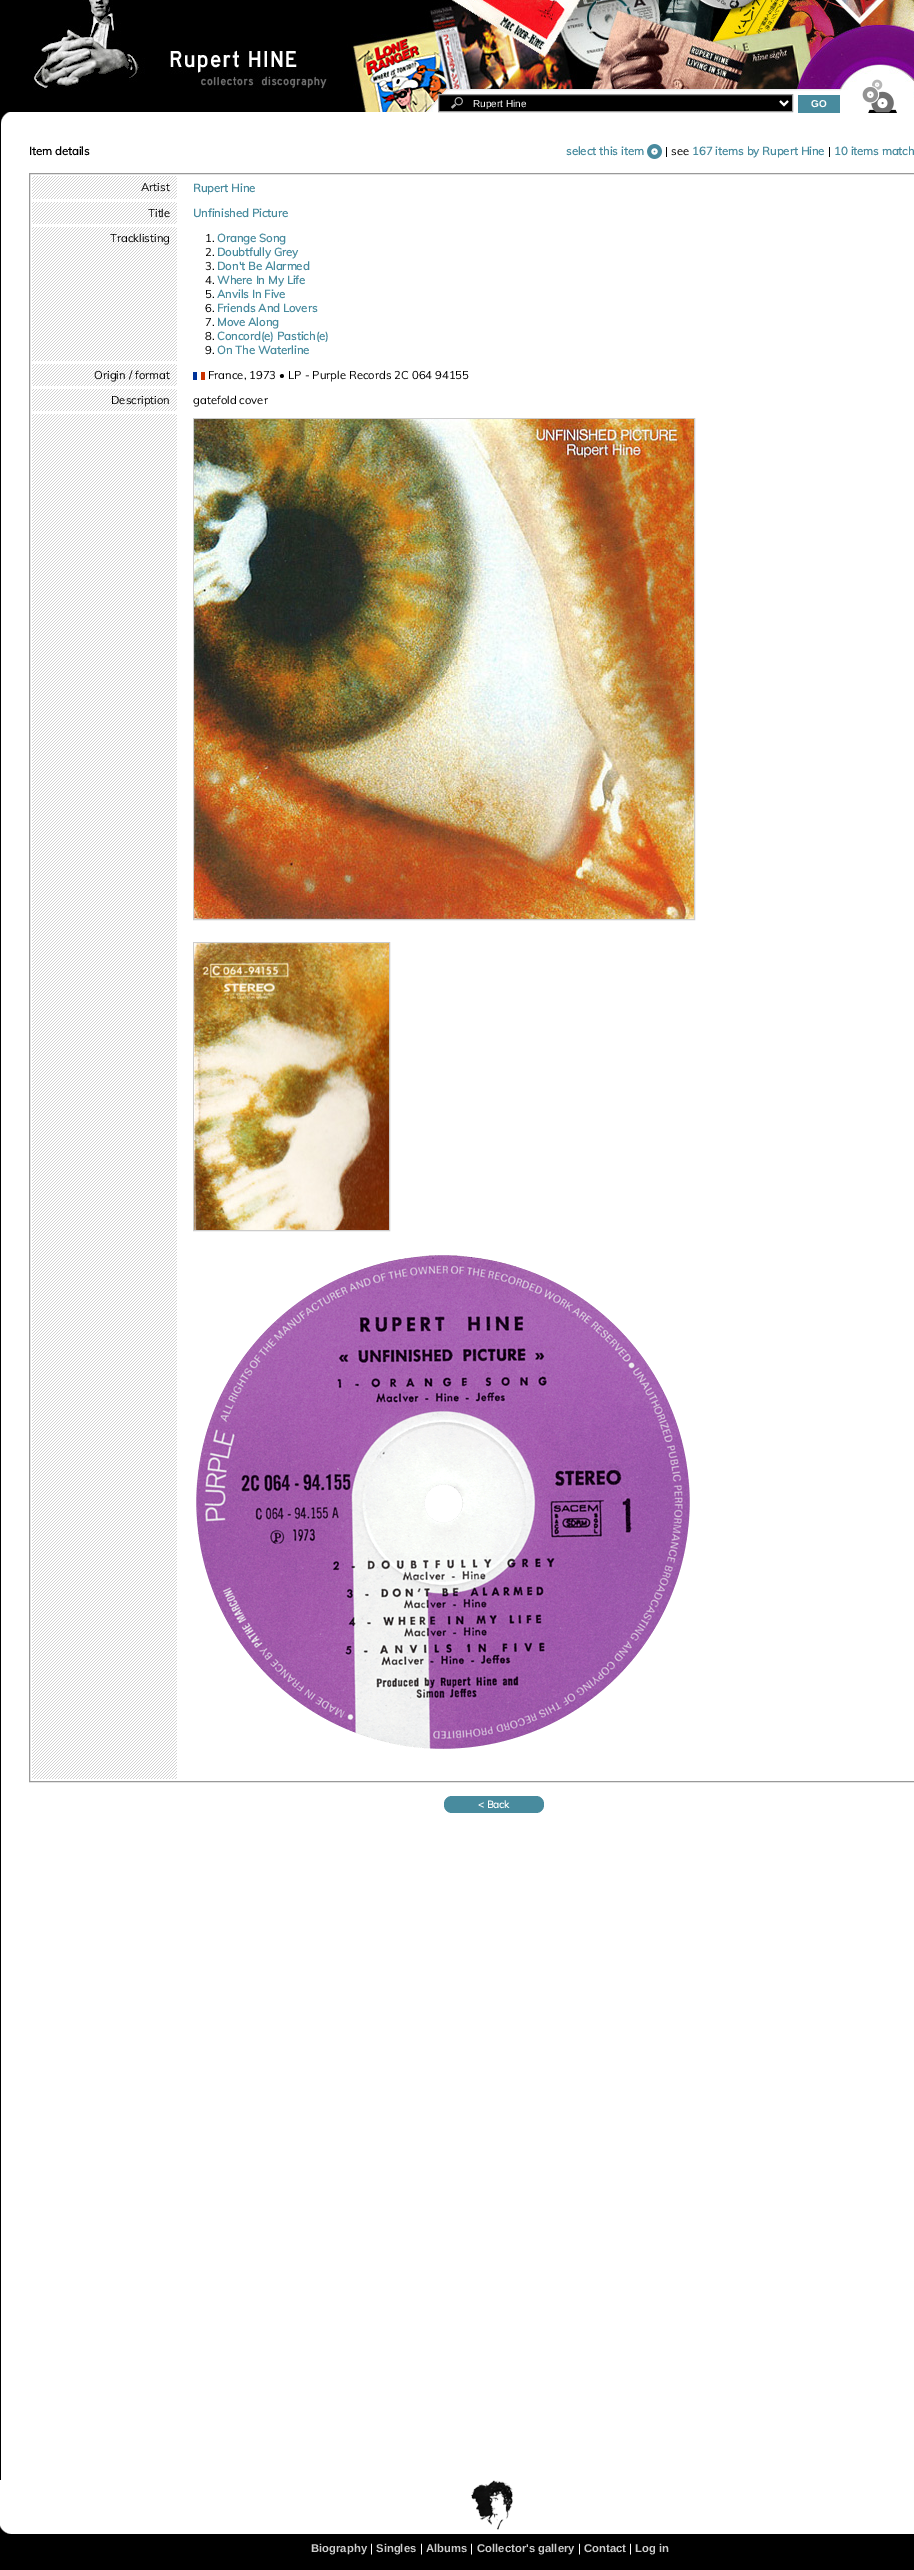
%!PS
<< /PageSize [914 2570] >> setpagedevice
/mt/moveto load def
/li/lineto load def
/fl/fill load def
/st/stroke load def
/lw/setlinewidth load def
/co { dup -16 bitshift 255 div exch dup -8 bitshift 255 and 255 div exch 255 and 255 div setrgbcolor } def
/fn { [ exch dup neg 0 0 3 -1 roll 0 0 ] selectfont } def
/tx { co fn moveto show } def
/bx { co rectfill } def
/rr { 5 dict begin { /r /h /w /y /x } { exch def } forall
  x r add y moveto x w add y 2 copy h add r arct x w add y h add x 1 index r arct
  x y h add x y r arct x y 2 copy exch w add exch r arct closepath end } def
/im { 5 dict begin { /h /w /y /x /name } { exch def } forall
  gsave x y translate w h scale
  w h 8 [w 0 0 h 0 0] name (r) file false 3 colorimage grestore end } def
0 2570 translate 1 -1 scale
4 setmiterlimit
0 0 914 2570 16#000000 bx
1 112 913 2368 16#FFFFFF bx
(media/1.raw) 1 112 9 12 im
(media/2.raw) 1 0 913 112 im
439 95 353 16 16#000000 bx
(media/3.raw) 451 97 12 12 im
16#999999 co
438.5 94.5 354 17 rectstroke
16#FFFFFF co
2 lw
780 101 mt 784 105 li 788 101 li st
798 95 42 18 16#488B9E bx
(media/4.raw) 862 79 35 34 im
(media/5.raw) 647 144 15 15 im
16#999999 co
1 lw
29.5 173.5 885 1608 rectstroke
(media/6.raw) 32 176 145 23 im
(media/7.raw) 32 202 145 22 im
(media/8.raw) 32 227 145 134 im
(media/7.raw) 32 364 145 22 im
(media/9.raw) 193 372 12 8 im
(media/7.raw) 32 389 145 22 im
(media/10.raw) 32 414 145 1365 im
16#CCCCCC co
193.5 418.5 501 501 rectstroke
(media/11.raw) 194 419 500 500 im
193.5 942.5 196 288 rectstroke
(media/12.raw) 194 943 195 287 im
(media/13.raw) 196 1255 494 494 im
16#488B9E co
444 1796 100 17 8 rr fl
0 2480 914 54 16#FFFFFF bx
(media/14.raw) 0 2480 513 54 im
(Rupert Hine) 473 107 /LiberationSans-Regular 10 16#FFFFFF tx
(GO) 811 107 /LiberationSans-Bold 10 16#FFFFFF tx
(Item details) 29 155 /Muli-Bold 11.3 16#000000 tx
(select this item) 566 155 /Muli-Bold 11.3 16#488B9E tx
(| see) 665 155 /Muli-Regular 11.3 16#000000 tx
(167 items by Rupert Hine) 692 155 /Muli-Bold 11.3 16#488B9E tx
(|) 828 155 /Muli-Regular 11.3 16#000000 tx
(10 items match) 834 155 /Muli-Bold 11.3 16#488B9E tx
(Artist) 141 191 /Muli-Regular 11.3 16#000000 tx
(Rupert Hine) 193 192 /Muli-Bold 11.3 16#488B9E tx
(Title) 148 217 /Muli-Regular 11.3 16#000000 tx
(Unfinished Picture) 193 217 /Muli-Bold 11.3 16#488B9E tx
(Tracklisting) 110 242 /Muli-Regular 11.3 16#000000 tx
(1.) 205 242 /Muli-Regular 11.3 16#000000 tx
(Orange Song) 217 242 /Muli-Bold 11.3 16#488B9E tx
(2.) 205 256 /Muli-Regular 11.3 16#000000 tx
(Doubtfully Grey) 217 256 /Muli-Bold 11.3 16#488B9E tx
(3.) 205 270 /Muli-Regular 11.3 16#000000 tx
(Don't Be Alarmed) 217 270 /Muli-Bold 11.3 16#488B9E tx
(4.) 205 284 /Muli-Regular 11.3 16#000000 tx
(Where In My Life) 217 284 /Muli-Bold 11.3 16#488B9E tx
(5.) 205 298 /Muli-Regular 11.3 16#000000 tx
(Anvils In Five) 217 298 /Muli-Bold 11.3 16#488B9E tx
(6.) 205 312 /Muli-Regular 11.3 16#000000 tx
(Friends And Lovers) 217 312 /Muli-Bold 11.3 16#488B9E tx
(7.) 205 326 /Muli-Regular 11.3 16#000000 tx
(Move Along) 217 326 /Muli-Bold 11.3 16#488B9E tx
(8.) 205 340 /Muli-Regular 11.3 16#000000 tx
(Concord\(e\) Pastich\(e\)) 217 340 /Muli-Bold 11.3 16#488B9E tx
(9.) 205 354 /Muli-Regular 11.3 16#000000 tx
(On The Waterline) 217 354 /Muli-Bold 11.3 16#488B9E tx
(Origin / format) 94 379 /Muli-Regular 11.3 16#000000 tx
(France, 1973 • LP - Purple Records 2C 064 94155) 208 379 /Muli-Regular 11.3 16#000000 tx
(Description) 111 404 /Muli-Regular 11.3 16#000000 tx
(gatefold cover) 193 404 /Muli-Regular 11.3 16#000000 tx
(< Back) 478 1808 /Muli-Bold 10 16#FFFFFF tx
(Biography) 311 2552 /LiberationSans-Bold 11.3 16#CCCCCC tx
(|) 370 2552 /LiberationSans-Regular 11.3 16#FFFFFF tx
(Singles) 376 2552 /LiberationSans-Bold 11.3 16#CCCCCC tx
(|) 420 2552 /LiberationSans-Regular 11.3 16#FFFFFF tx
(Albums) 426 2552 /LiberationSans-Bold 11.3 16#CCCCCC tx
(|) 470 2552 /LiberationSans-Regular 11.3 16#FFFFFF tx
(Collector's gallery) 477 2552 /LiberationSans-Bold 11.3 16#CCCCCC tx
(|) 578 2552 /LiberationSans-Regular 11.3 16#FFFFFF tx
(Contact) 584 2552 /LiberationSans-Bold 11.3 16#CCCCCC tx
(|) 629 2552 /LiberationSans-Regular 11.3 16#FFFFFF tx
(Log in) 635 2552 /LiberationSans-Bold 11.3 16#CCCCCC tx
showpage
